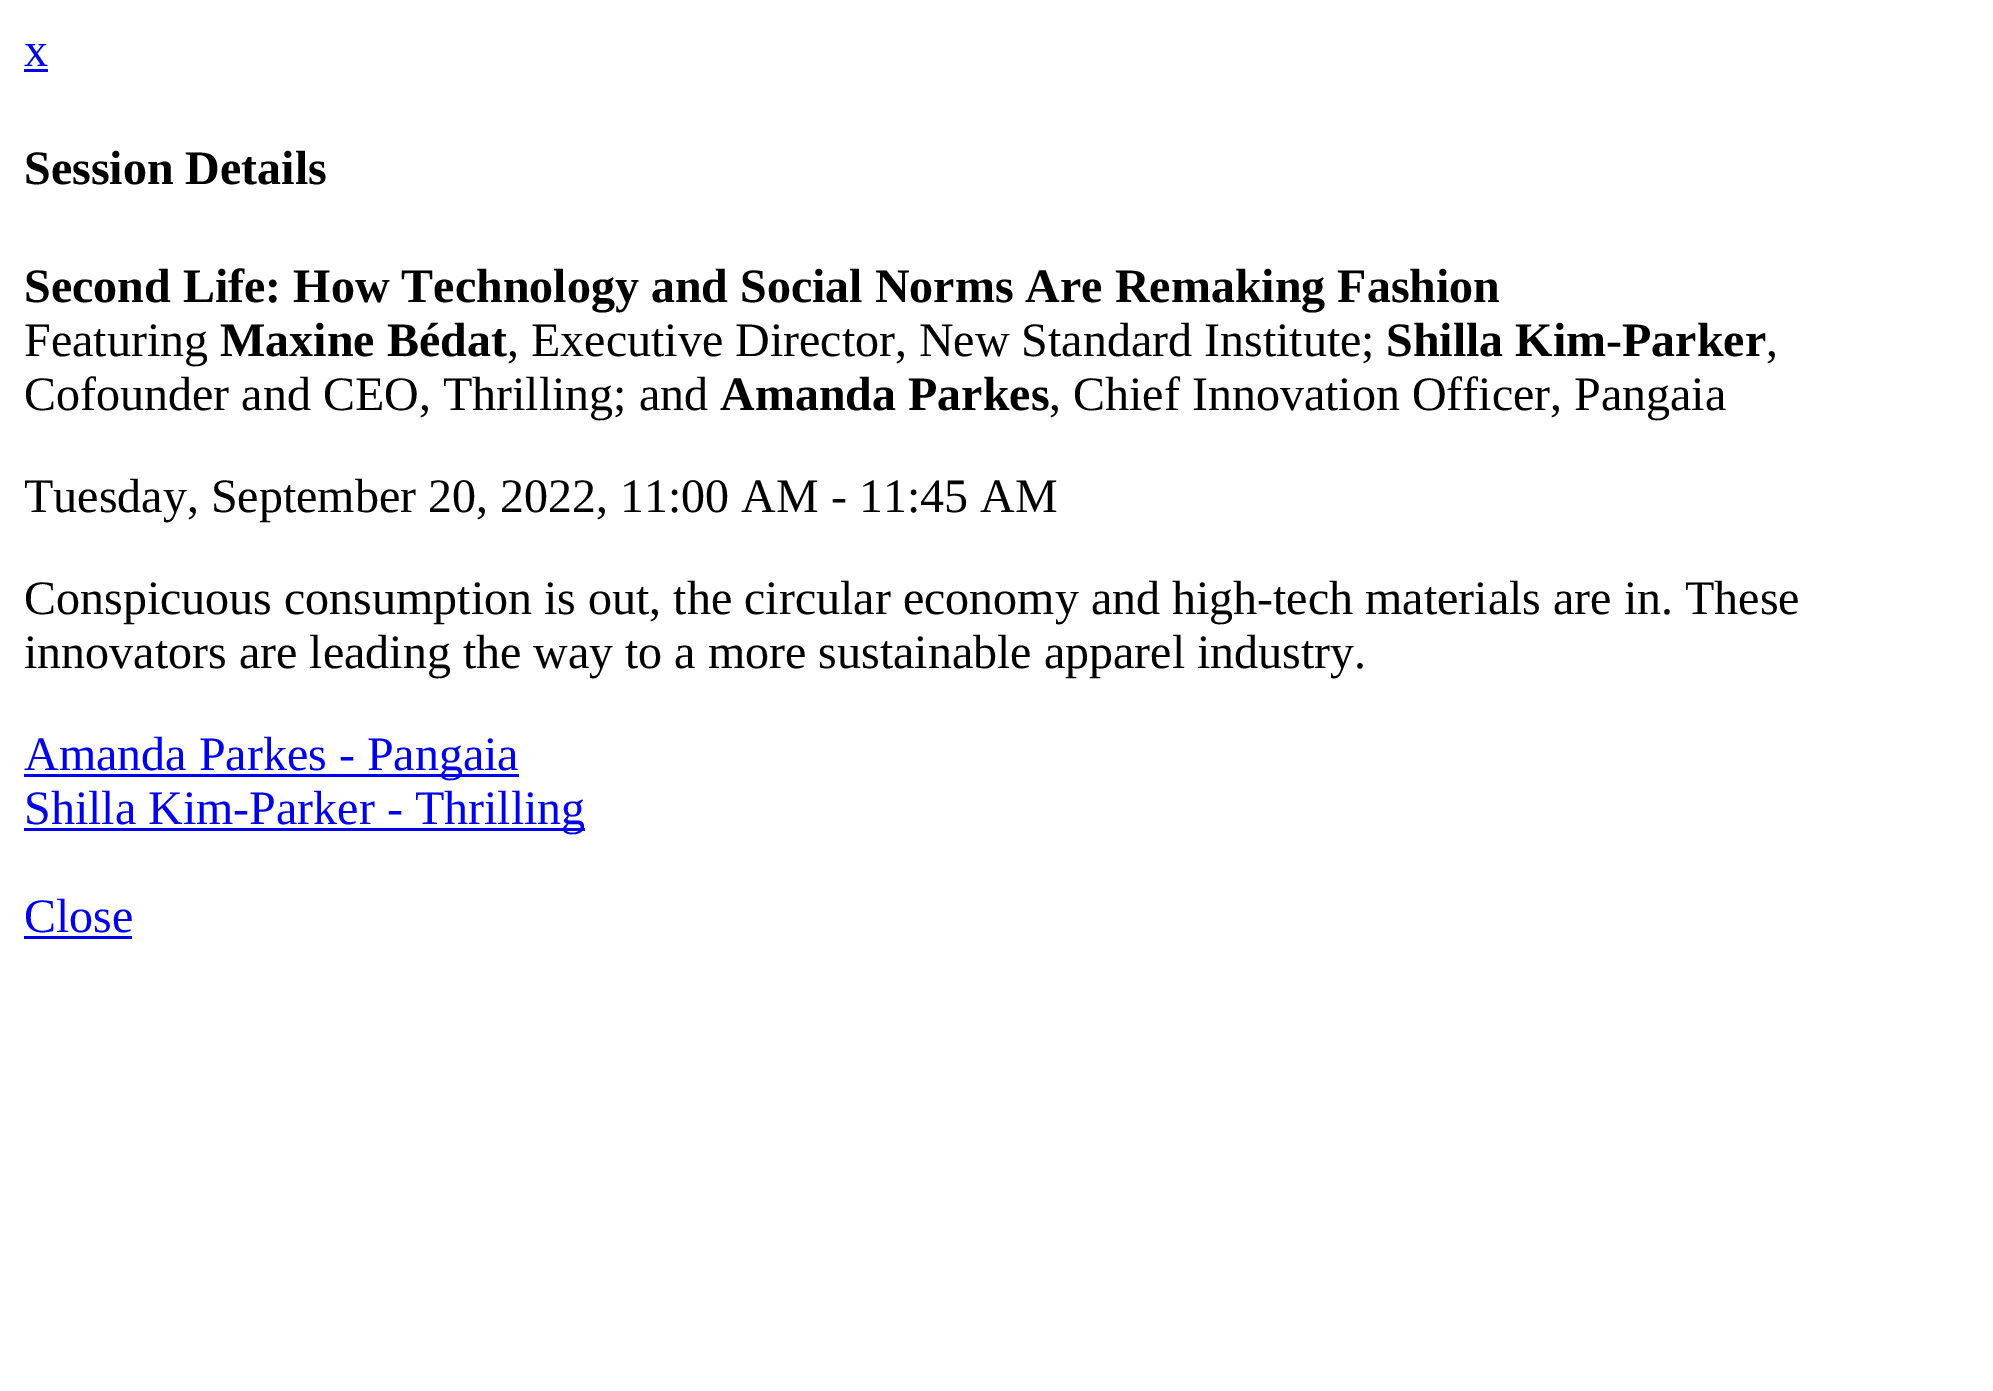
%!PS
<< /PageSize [1993 1391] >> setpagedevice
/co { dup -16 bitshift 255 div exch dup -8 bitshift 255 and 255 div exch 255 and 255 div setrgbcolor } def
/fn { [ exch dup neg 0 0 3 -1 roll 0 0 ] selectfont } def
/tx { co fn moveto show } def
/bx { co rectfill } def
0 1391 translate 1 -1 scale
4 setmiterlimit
0 0 1993 1391 16#FFFFFF bx
24 69 24 3 16#0000EE bx
24 774 495 3 16#0000EE bx
24 828 561 3 16#0000EE bx
24 936 108 3 16#0000EE bx
(x) 24 66 /LiberationSerif-Regular 48 16#0000EE tx
(Session Details) 24 184 /LiberationSerif-Bold 48 16#000000 tx
(Second Life: How Technology and Social Norms Are Remaking Fashion) 24 302 /LiberationSerif-Bold 48 16#000000 tx
(Featuring) 24 356 /LiberationSerif-Regular 48 16#000000 tx
(Maxine Bédat) 220 356 /LiberationSerif-Bold 48 16#000000 tx
(, Executive Director, New Standard Institute;) 507 356 /LiberationSerif-Regular 48 16#000000 tx
(Shilla Kim-Parker) 1386 356 /LiberationSerif-Bold 48 16#000000 tx
(,) 1766 356 /LiberationSerif-Regular 48 16#000000 tx
(Cofounder and CEO, Thrilling; and) 24 410 /LiberationSerif-Regular 48 16#000000 tx
(Amanda Parkes) 720 410 /LiberationSerif-Bold 48 16#000000 tx
(, Chief Innovation Officer, Pangaia) 1049 410 /LiberationSerif-Regular 48 16#000000 tx
(Tuesday, September 20, 2022, 11:00 AM - 11:45 AM) 24 512 /LiberationSerif-Regular 48 16#000000 tx
(Conspicuous consumption is out, the circular economy and high-tech materials are in. These) 24 614 /LiberationSerif-Regular 48 16#000000 tx
(innovators are leading the way to a more sustainable apparel industry.) 24 668 /LiberationSerif-Regular 48 16#000000 tx
(Amanda Parkes - Pangaia) 24 770 /LiberationSerif-Regular 48 16#0000EE tx
(Shilla Kim-Parker - Thrilling) 24 824 /LiberationSerif-Regular 48 16#0000EE tx
(Close) 24 932 /LiberationSerif-Regular 48 16#0000EE tx
showpage
